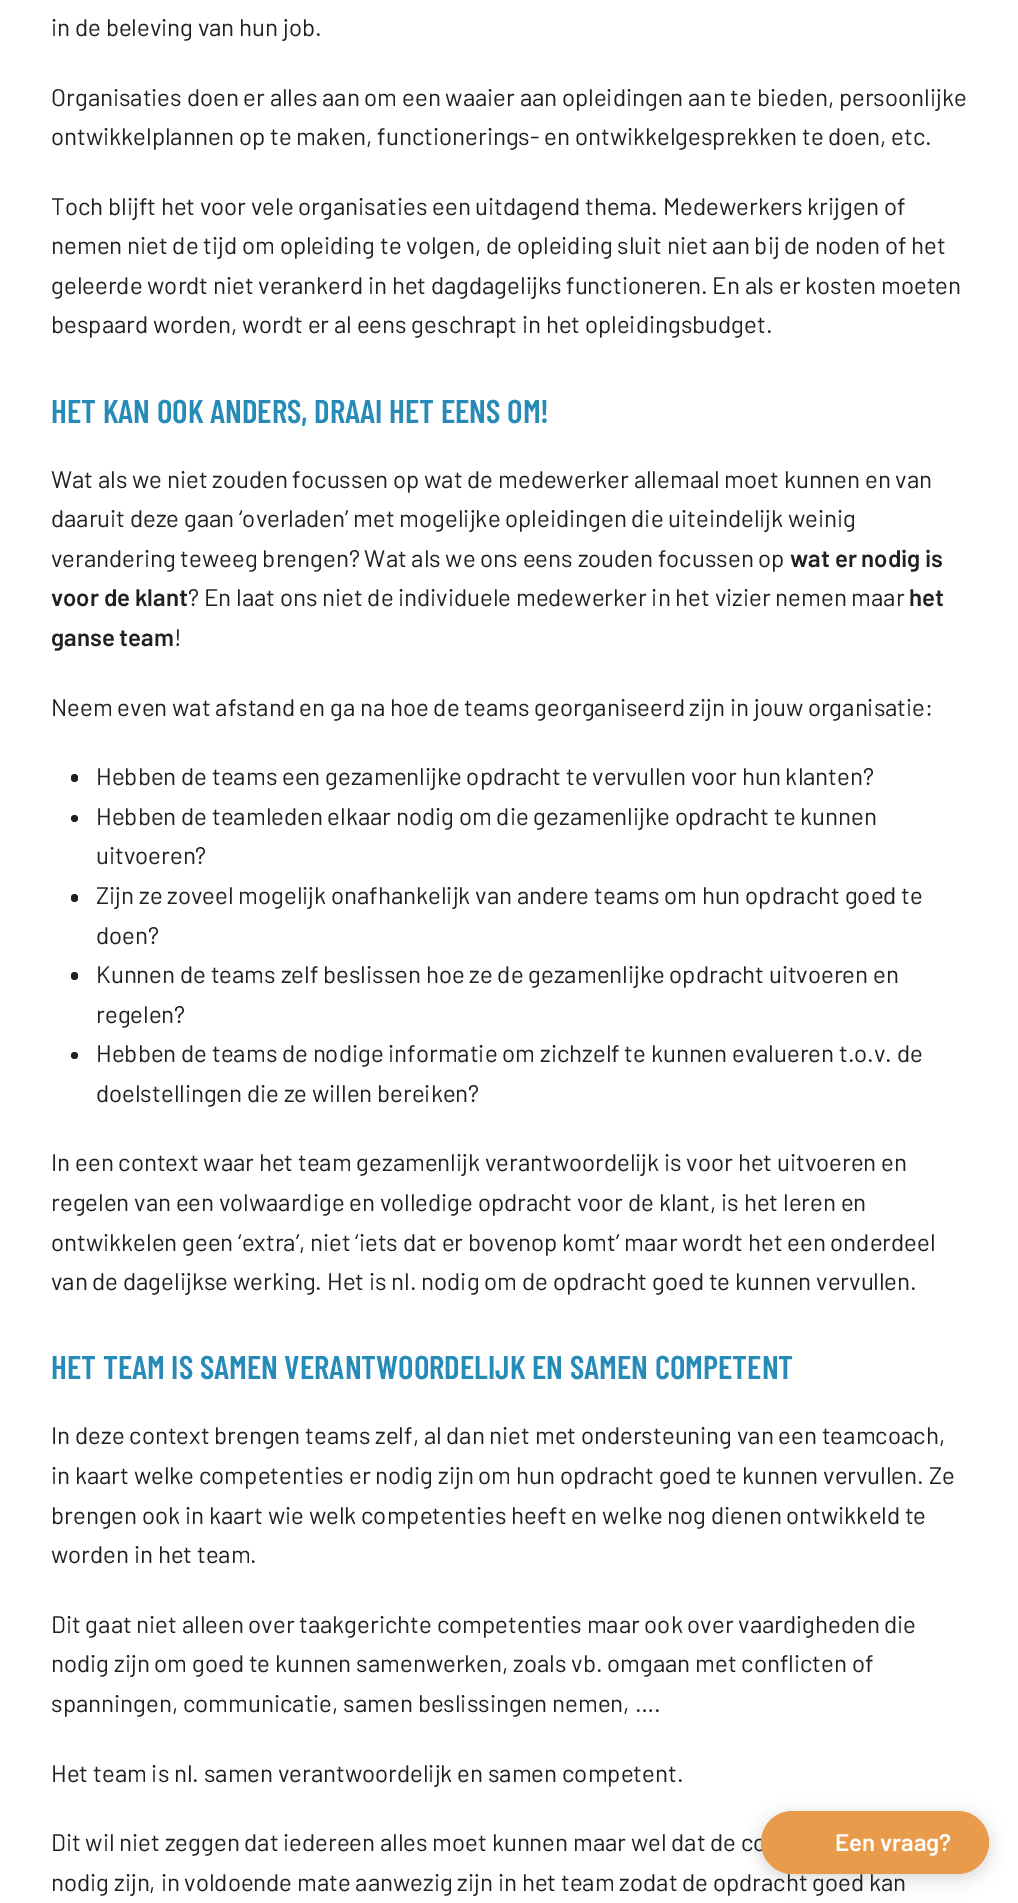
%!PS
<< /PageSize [1018 1903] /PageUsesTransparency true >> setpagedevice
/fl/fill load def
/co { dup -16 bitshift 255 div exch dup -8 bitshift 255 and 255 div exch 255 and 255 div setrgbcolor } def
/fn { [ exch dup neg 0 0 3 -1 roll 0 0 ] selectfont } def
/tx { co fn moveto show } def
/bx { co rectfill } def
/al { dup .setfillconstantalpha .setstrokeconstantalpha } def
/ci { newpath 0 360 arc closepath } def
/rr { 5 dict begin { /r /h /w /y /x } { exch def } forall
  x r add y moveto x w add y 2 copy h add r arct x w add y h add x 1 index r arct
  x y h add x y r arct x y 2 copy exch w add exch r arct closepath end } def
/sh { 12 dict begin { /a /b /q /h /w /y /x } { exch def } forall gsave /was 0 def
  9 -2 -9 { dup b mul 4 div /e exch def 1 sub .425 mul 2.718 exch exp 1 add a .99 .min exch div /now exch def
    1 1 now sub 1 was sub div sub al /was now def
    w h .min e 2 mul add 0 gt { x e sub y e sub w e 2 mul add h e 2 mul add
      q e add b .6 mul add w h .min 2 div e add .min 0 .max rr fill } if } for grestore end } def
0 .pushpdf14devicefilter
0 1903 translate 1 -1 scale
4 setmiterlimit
0 0 1018 1903 16#FFFFFF bx
16#212121 co
71 774 7 8 3.5 rr fl
74.5 818.5 3.5 ci fl
71 894 7 8 3.5 rr fl
71 972 7 8 3.5 rr fl
74.5 1055.5 3.5 ci fl
16#000000 co
761 1815 228 63 31.5 9 .15 sh
(in de beleving van hun job.) 51 36 /Barlow-Regular 24 16#212121 tx
(Organisaties doen er alles aan om een waaier aan opleidingen aan te bieden, persoonlijke) 51 106 /Barlow-Regular 24 16#212121 tx
(ontwikkelplannen op te maken, functionerings- en ontwikkelgesprekken te doen, etc.) 51 145 /Barlow-Regular 24 16#212121 tx
(Toch blijft het voor vele organisaties een uitdagend thema. Medewerkers krijgen of) 51 215 /Barlow-Regular 24 16#212121 tx
(nemen niet de tijd om opleiding te volgen, de opleiding sluit niet aan bij de noden of het) 51 254 /Barlow-Regular 24 16#212121 tx
(geleerde wordt niet verankerd in het dagdagelijks functioneren. En als er kosten moeten) 51 294 /Barlow-Regular 24 16#212121 tx
(bespaard worden, wordt er al eens geschrapt in het opleidingsbudget.) 51 333 /Barlow-Regular 24 16#212121 tx
(HET KAN OOK ANDERS, DRAAI HET EENS OM!) 51 423 /BarlowCondensed-SemiBold 33 16#278BB7 tx
(Wat als we niet zouden focussen op wat de medewerker allemaal moet kunnen en van) 51 488 /Barlow-Regular 24 16#212121 tx
(daaruit deze gaan ‘overladen’ met mogelijke opleidingen die uiteindelijk weinig) 51 527 /Barlow-Regular 24 16#212121 tx
(verandering teweeg brengen? Wat als we ons eens zouden focussen op) 51 567 /Barlow-Regular 24 16#212121 tx
(wat er nodig is) 790 567 /Barlow-SemiBold 24 16#212121 tx
(voor de klant) 51 606 /Barlow-SemiBold 24 16#212121 tx
(? En laat ons niet de individuele medewerker in het vizier nemen maar) 188 606 /Barlow-Regular 24 16#212121 tx
(het) 909 606 /Barlow-SemiBold 24 16#212121 tx
(ganse team) 51 646 /Barlow-SemiBold 24 16#212121 tx
(!) 174 646 /Barlow-Regular 24 16#212121 tx
(Neem even wat afstand en ga na hoe de teams georganiseerd zijn in jouw organisatie:) 51 716 /Barlow-Regular 24 16#212121 tx
(Hebben de teams een gezamenlijke opdracht te vervullen voor hun klanten?) 96 785 /Barlow-Regular 24 16#212121 tx
(Hebben de teamleden elkaar nodig om die gezamenlijke opdracht te kunnen) 96 825 /Barlow-Regular 24 16#212121 tx
(uitvoeren?) 96 864 /Barlow-Regular 24 16#212121 tx
(Zijn ze zoveel mogelijk onafhankelijk van andere teams om hun opdracht goed te) 96 904 /Barlow-Regular 24 16#212121 tx
(doen?) 96 944 /Barlow-Regular 24 16#212121 tx
(Kunnen de teams zelf beslissen hoe ze de gezamenlijke opdracht uitvoeren en) 96 983 /Barlow-Regular 24 16#212121 tx
(regelen?) 96 1023 /Barlow-Regular 24 16#212121 tx
(Hebben de teams de nodige informatie om zichzelf te kunnen evalueren t.o.v. de) 96 1062 /Barlow-Regular 24 16#212121 tx
(doelstellingen die ze willen bereiken?) 96 1102 /Barlow-Regular 24 16#212121 tx
(In een context waar het team gezamenlijk verantwoordelijk is voor het uitvoeren en) 51 1171 /Barlow-Regular 24 16#212121 tx
(regelen van een volwaardige en volledige opdracht voor de klant, is het leren en) 51 1211 /Barlow-Regular 24 16#212121 tx
(ontwikkelen geen ‘extra’, niet ‘iets dat er bovenop komt’ maar wordt het een onderdeel) 51 1251 /Barlow-Regular 24 16#212121 tx
(van de dagelijkse werking. Het is nl. nodig om de opdracht goed te kunnen vervullen.) 51 1290 /Barlow-Regular 24 16#212121 tx
(HET TEAM IS SAMEN VERANTWOORDELIJK EN SAMEN COMPETENT) 51 1379 /BarlowCondensed-SemiBold 33 16#278BB7 tx
(In deze context brengen teams zelf, al dan niet met ondersteuning van een teamcoach,) 51 1444 /Barlow-Regular 24 16#212121 tx
(in kaart welke competenties er nodig zijn om hun opdracht goed te kunnen vervullen. Ze) 51 1484 /Barlow-Regular 24 16#212121 tx
(brengen ook in kaart wie welk competenties heeft en welke nog dienen ontwikkeld te) 51 1524 /Barlow-Regular 24 16#212121 tx
(worden in het team.) 51 1563 /Barlow-Regular 24 16#212121 tx
(Dit gaat niet alleen over taakgerichte competenties maar ook over vaardigheden die) 51 1633 /Barlow-Regular 24 16#212121 tx
(nodig zijn om goed te kunnen samenwerken, zoals vb. omgaan met conflicten of) 51 1672 /Barlow-Regular 24 16#212121 tx
(spanningen, communicatie, samen beslissingen nemen, ….) 51 1712 /Barlow-Regular 24 16#212121 tx
(Het team is nl. samen verantwoordelijk en samen competent.) 51 1782 /Barlow-Regular 24 16#212121 tx
(Dit wil niet zeggen dat iedereen alles moet kunnen maar wel dat de co) 51 1851 /Barlow-Regular 24 16#212121 tx
(nodig zijn, in voldoende mate aanwezig zijn in het team zodat de opdracht goed kan) 51 1891 /Barlow-Regular 24 16#212121 tx
16#E89B4B co
761 1811 228 63 31.5 rr fl
(Een vraag?) 835 1851 /Barlow-SemiBold 24 16#FFFFFF tx
.poppdf14devicefilter showpage
